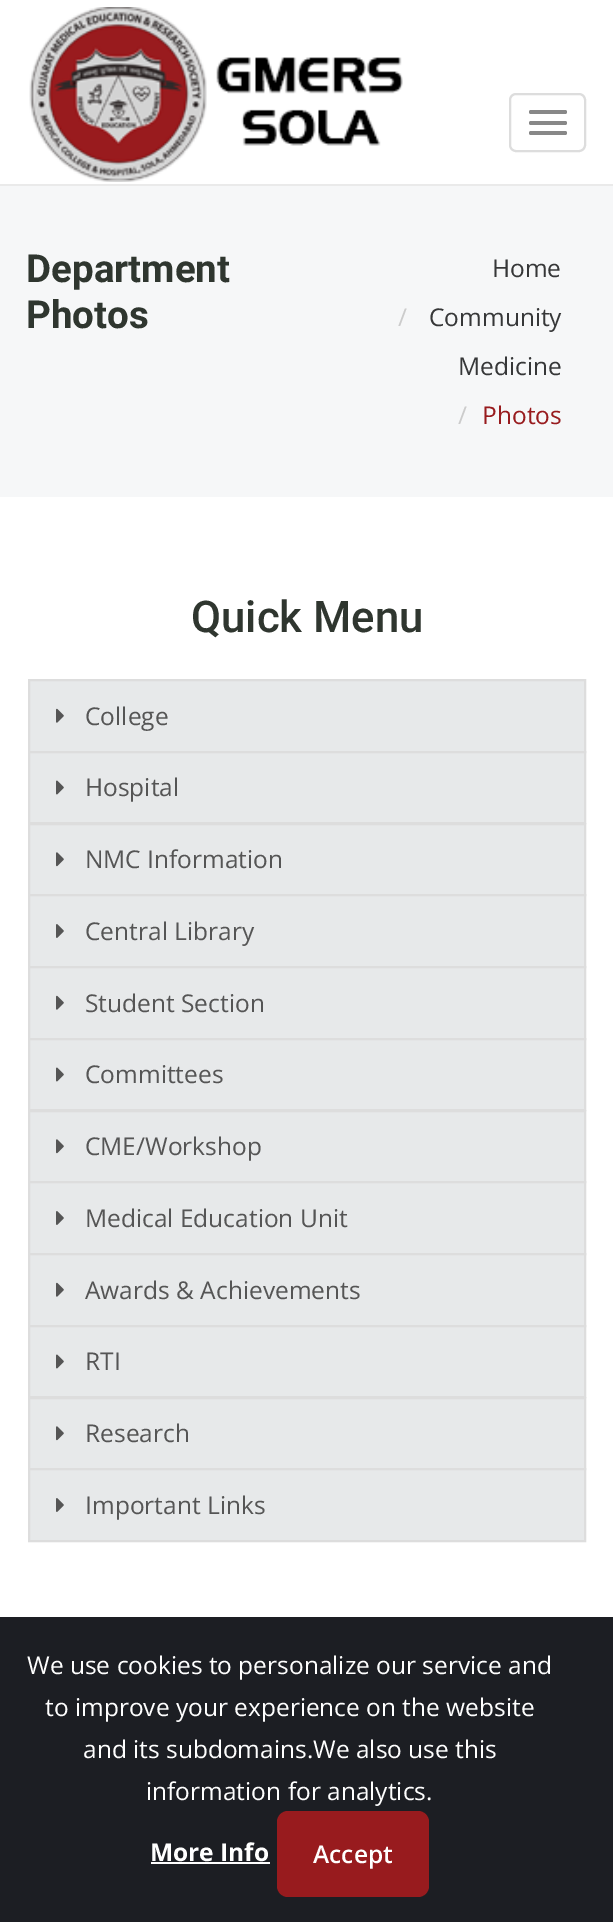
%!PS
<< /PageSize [613 1922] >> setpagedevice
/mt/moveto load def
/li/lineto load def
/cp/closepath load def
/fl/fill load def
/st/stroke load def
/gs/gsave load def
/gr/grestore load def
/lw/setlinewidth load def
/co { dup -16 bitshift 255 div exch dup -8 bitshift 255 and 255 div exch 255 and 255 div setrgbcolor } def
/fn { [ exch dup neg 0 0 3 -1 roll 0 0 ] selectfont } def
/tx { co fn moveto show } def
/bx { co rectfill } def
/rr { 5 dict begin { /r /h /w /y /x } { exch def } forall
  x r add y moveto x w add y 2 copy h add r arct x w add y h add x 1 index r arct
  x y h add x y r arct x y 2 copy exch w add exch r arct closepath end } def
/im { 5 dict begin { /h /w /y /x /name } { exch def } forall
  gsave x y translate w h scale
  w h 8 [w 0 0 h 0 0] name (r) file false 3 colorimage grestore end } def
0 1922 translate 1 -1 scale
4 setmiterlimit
0 0 613 1922 16#FFFFFF bx
(media/1.raw) 29 7 374 175 im
16#DDDDDD co
2 lw
510 94 75 57 6 rr st
16#888888 co
529 110 38 4 2 rr fl
529 121 38 4 2 rr fl
529 131 38 4 2 rr fl
0 186 613 311 16#F6F7F8 bx
0 184 613 2 16#EAEAEA bx
16#E7E9EA co
29 680 mt 585 680 li 585 752 li 29 752 li cp gs fl gr
16#DDDDDD co
st
(media/2.raw) 56 708 8 15 im
16#E7E9EA co
29 752 mt 585 752 li 585 823 li 29 823 li cp gs fl gr
16#DDDDDD co
st
(media/3.raw) 56 780 8 15 im
16#E7E9EA co
29 824 mt 585 824 li 585 895 li 29 895 li cp gs fl gr
16#DDDDDD co
st
(media/4.raw) 56 852 8 15 im
16#E7E9EA co
29 895 mt 585 895 li 585 967 li 29 967 li cp gs fl gr
16#DDDDDD co
st
(media/5.raw) 56 924 8 14 im
16#E7E9EA co
29 967 mt 585 967 li 585 1039 li 29 1039 li cp gs fl gr
16#DDDDDD co
st
(media/2.raw) 56 995 8 15 im
16#E7E9EA co
29 1039 mt 585 1039 li 585 1110 li 29 1110 li cp gs fl gr
16#DDDDDD co
st
(media/3.raw) 56 1067 8 15 im
16#E7E9EA co
29 1111 mt 585 1111 li 585 1182 li 29 1182 li cp gs fl gr
16#DDDDDD co
st
(media/4.raw) 56 1139 8 15 im
16#E7E9EA co
29 1182 mt 585 1182 li 585 1254 li 29 1254 li cp gs fl gr
16#DDDDDD co
st
(media/5.raw) 56 1211 8 14 im
16#E7E9EA co
29 1254 mt 585 1254 li 585 1326 li 29 1326 li cp gs fl gr
16#DDDDDD co
st
(media/2.raw) 56 1282 8 15 im
16#E7E9EA co
29 1326 mt 585 1326 li 585 1397 li 29 1397 li cp gs fl gr
16#DDDDDD co
st
(media/3.raw) 56 1354 8 15 im
16#E7E9EA co
29 1398 mt 585 1398 li 585 1469 li 29 1469 li cp gs fl gr
16#DDDDDD co
st
(media/4.raw) 56 1426 8 15 im
16#E7E9EA co
29 1469 mt 585 1469 li 585 1541 li 29 1541 li cp gs fl gr
16#DDDDDD co
st
(media/5.raw) 56 1498 8 14 im
0 1617 613 305 16#1C1E23 bx
151 1862 119 2 16#FFFFFF bx
16#981B1E co
277 1811 152 86 11 rr fl
(Department) 26 282 /Roboto-Bold 38.5 16#2F362F tx
(Photos) 26 328 /Roboto-Bold 38.5 16#2F362F tx
(Home) 492 277 /OpenSans-Regular 24.5 16#363738 tx
(/) 398 326 /OpenSans-Regular 24.5 16#CCCCCC tx
(Community) 429 326 /OpenSans-Regular 24.5 16#363738 tx
(Medicine) 458 375 /OpenSans-Regular 24.5 16#363738 tx
(/) 458 424 /OpenSans-Regular 24.5 16#CCCCCC tx
(Photos) 482 424 /OpenSans-Regular 24.5 16#981B1E tx
(Quick Menu) 191 632 /Roboto-Medium 43.75 16#2F362F tx
(College) 85 725 /OpenSans-Regular 24.5 16#555555 tx
(Hospital) 85 796 /OpenSans-Regular 24.5 16#555555 tx
(NMC Information) 85 868 /OpenSans-Regular 24.5 16#555555 tx
(Central Library) 85 940 /OpenSans-Regular 24.5 16#555555 tx
(Student Section) 85 1012 /OpenSans-Regular 24.5 16#555555 tx
(Committees) 85 1083 /OpenSans-Regular 24.5 16#555555 tx
(CME/Workshop) 85 1155 /OpenSans-Regular 24.5 16#555555 tx
(Medical Education Unit) 85 1227 /OpenSans-Regular 24.5 16#555555 tx
(Awards & Achievements) 85 1299 /OpenSans-Regular 24.5 16#555555 tx
(RTI) 85 1370 /OpenSans-Regular 24.5 16#555555 tx
(Research) 85 1442 /OpenSans-Regular 24.5 16#555555 tx
(Important Links) 85 1514 /OpenSans-Regular 24.5 16#555555 tx
(We use cookies to personalize our service and) 27 1674 /OpenSans-Regular 24.5 16#FFFFFF tx
(to improve your experience on the website) 45 1716 /OpenSans-Regular 24.5 16#FFFFFF tx
(and its subdomains.We also use this) 83 1758 /OpenSans-Regular 24.5 16#FFFFFF tx
(information for analytics.) 146 1800 /OpenSans-Regular 24.5 16#FFFFFF tx
(More Info) 150 1861 /OpenSans-Bold 24.5 16#FFFFFF tx
(Accept) 313 1863 /OpenSans-SemiBold 24.5 16#FFFFFF tx
showpage
